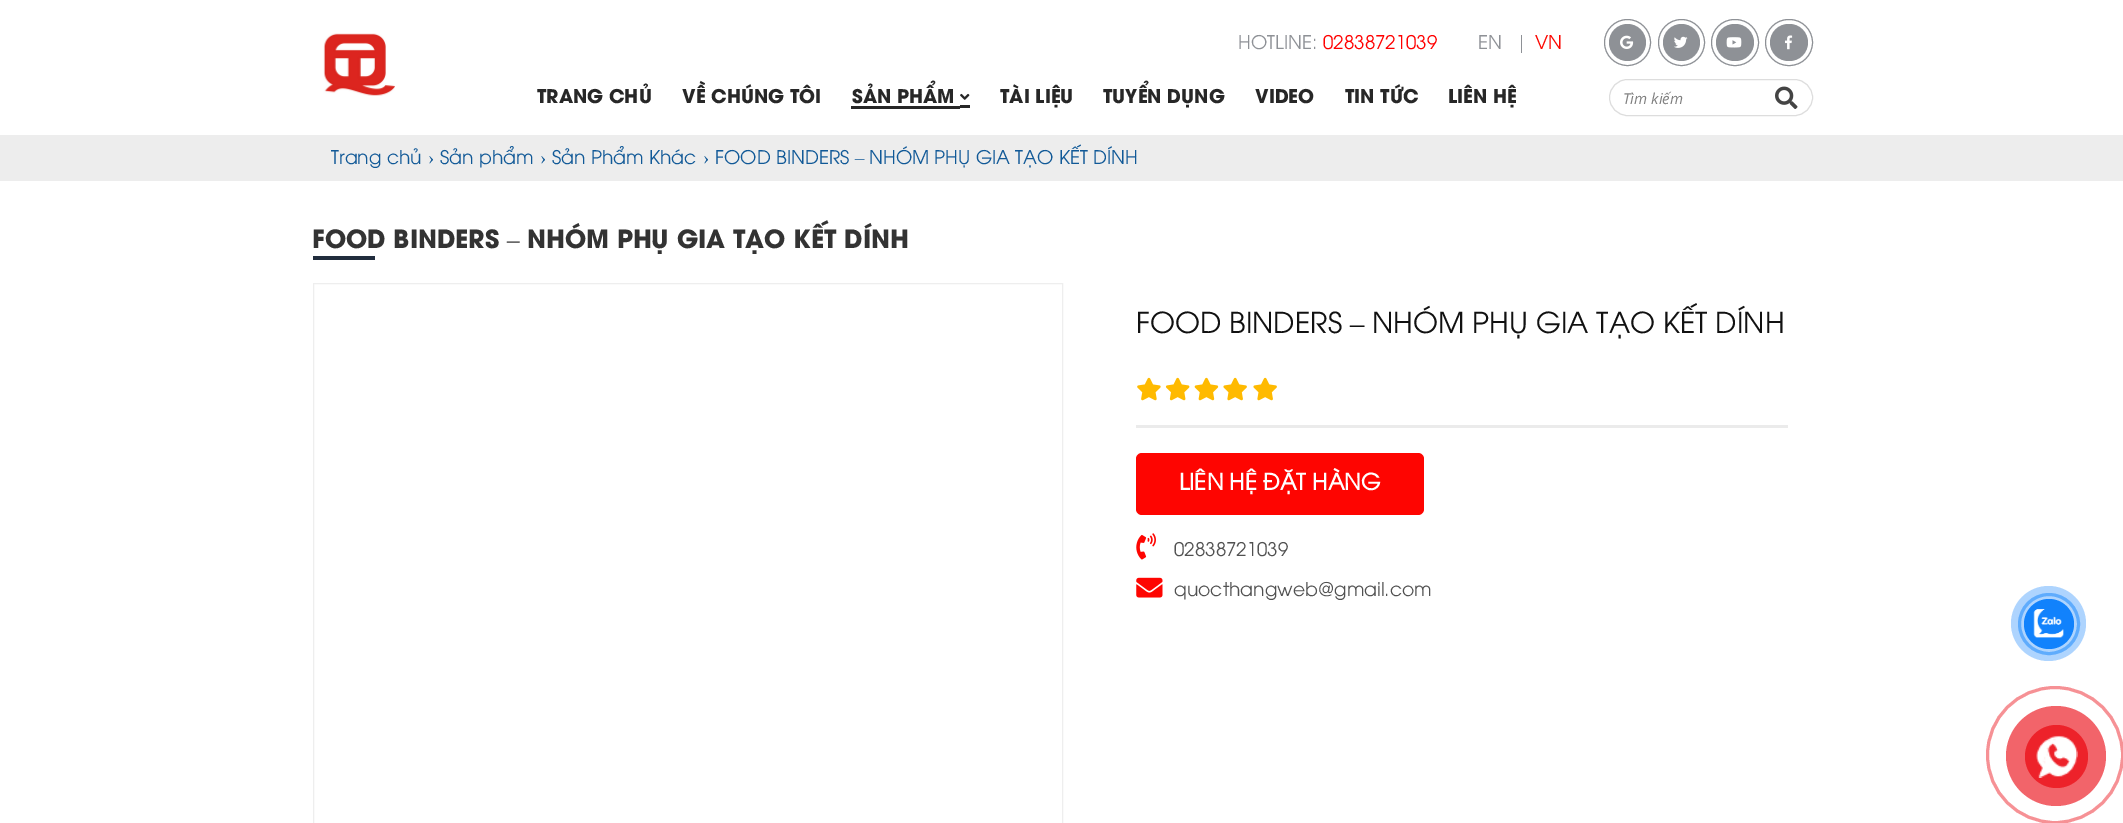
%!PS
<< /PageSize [2123 823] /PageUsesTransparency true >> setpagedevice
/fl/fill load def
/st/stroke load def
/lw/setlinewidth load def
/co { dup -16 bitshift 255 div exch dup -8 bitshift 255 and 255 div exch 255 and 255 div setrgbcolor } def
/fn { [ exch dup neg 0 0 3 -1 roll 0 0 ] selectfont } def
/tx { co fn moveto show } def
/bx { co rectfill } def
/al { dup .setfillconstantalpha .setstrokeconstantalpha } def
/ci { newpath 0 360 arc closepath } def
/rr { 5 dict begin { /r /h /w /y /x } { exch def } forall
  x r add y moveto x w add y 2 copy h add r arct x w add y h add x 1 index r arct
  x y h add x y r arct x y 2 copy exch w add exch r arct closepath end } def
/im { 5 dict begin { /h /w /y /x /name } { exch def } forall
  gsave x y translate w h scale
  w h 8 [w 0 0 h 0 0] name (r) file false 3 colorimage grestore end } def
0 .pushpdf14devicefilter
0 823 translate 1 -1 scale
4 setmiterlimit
0 0 2123 823 16#FFFFFF bx
(media/1.raw) 323 33 72 63 im
1521 35 1 18 16#8E9196 bx
1627.5 42.5 23 ci st
1627.5 42.5 18.5 ci fl
(media/2.raw) 1620 35 14 14 im
1681.5 42.5 23 ci st
1681.5 42.5 18.5 ci fl
(media/3.raw) 1674 36 14 12 im
1711.5 19.5 47 46 23 rr st
1716 24 38 37 18.5 rr fl
(media/4.raw) 1726 37 16 11 im
1765.5 19.5 47 46 23 rr st
1770 24 38 37 18.5 rr fl
(media/5.raw) 1785 35 8 15 im
851 106 109 3 16#272727 bx
960 105 10 3 16#272727 bx
(media/6.raw) 960 93 10 7 im
16#DDDDDD co
1609.5 79.5 203 36 18 rr st
(media/7.raw) 1775 86 23 23 im
0 135 2123 46 16#EDEDED bx
313 256 62 4 16#212D3D bx
16#EEEEEE co
313.5 283.5 749 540 rectstroke
1136 425 652 3 16#EBEBEB bx
(media/8.raw) 1137 377 24 24 im
(media/9.raw) 1165 377 25 24 im
(media/10.raw) 1194 377 25 24 im
(media/11.raw) 1223 377 24 24 im
(media/11.raw) 1253 377 24 24 im
16#FE0501 co
1136 453 288 62 6 rr fl
(media/12.raw) 1136 533 20 27 im
(media/13.raw) 1136 577 27 21 im
16#88C1FE co
3 lw
2049 624 29.5 ci st
0.34 al
16#1182FC co
2048.5 623.5 37.5 ci fl
1 al
2049 624 25 ci fl
(media/14.raw) 2033 609 31 29 im
16#F69195 co
2055 755 67.5 ci st
16#F2646A co
2056 756 50 ci fl
16#ED222A co
2056.5 756.5 31.5 ci fl
(media/15.raw) 2036 735 42 43 im
(HOTLINE:) 1238 49 /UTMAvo-Regular 18.75 16#8E9196 tx
(02838721039) 1323 49 /UTMAvo-Regular 18.75 16#FF0000 tx
(EN) 1478 49 /UTMAvo-Regular 18.75 16#8E9196 tx
(VN) 1535 49 /UTMAvo-Regular 18.75 16#FC0600 tx
(TRANG CHỦ) 537 103 /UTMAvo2-Bold 18.75 16#272727 tx
(VỀ CHÚNG TÔI) 682 103 /UTMAvo2-Bold 18.75 16#272727 tx
(SẢN PHẨM) 852 103 /UTMAvo2-Bold 18.75 16#272727 tx
(TÀI LIỆU) 1000 103 /UTMAvo2-Bold 18.75 16#272727 tx
(TUYỂN DỤNG) 1103 103 /UTMAvo2-Bold 18.75 16#272727 tx
(VIDEO) 1255 103 /UTMAvo2-Bold 18.75 16#272727 tx
(TIN TỨC) 1345 103 /UTMAvo2-Bold 18.75 16#272727 tx
(LIÊN HỆ) 1448 103 /UTMAvo2-Bold 18.75 16#272727 tx
(Tìm kiếm) 1623 104 /OpenSans-Italic 15 16#808080 tx
(Trang chủ) 331 164 /UTMAvo-Regular 18.75 16#115997 tx
(›) 428 164 /LiberationSerif-Regular 18.75 16#115997 tx
(Sản phẩm) 440 164 /UTMAvo-Regular 18.75 16#115997 tx
(›) 540 164 /LiberationSerif-Regular 18.75 16#115997 tx
(Sản Phẩm Khác) 552 164 /UTMAvo-Regular 18.75 16#115997 tx
(›) 703 164 /LiberationSerif-Regular 18.75 16#115997 tx
(FOOD BINDERS) 715 164 /UTMAvo-Regular 18.75 16#115997 tx
(–) 855 164 /LiberationSerif-Regular 18.75 16#115997 tx
(NHÓM PHỤ GIA TẠO KẾT DÍNH) 869 164 /UTMAvo-Regular 18.75 16#115997 tx
(FOOD BINDERS) 312 248 /UTMAvo2-Bold 25 16#333333 tx
(–) 507 248 /LiberationSerif-Regular 25 16#333333 tx
(NHÓM PHỤ GIA TẠO KẾT DÍNH) 527 248 /UTMAvo2-Bold 25 16#333333 tx
(FOOD BINDERS) 1136 333 /UTMAvo-Regular 28.75 16#111111 tx
(–) 1350 333 /LiberationSerif-Regular 28.75 16#111111 tx
(NHÓM PHỤ GIA TẠO KẾT DÍNH) 1372 333 /UTMAvo-Regular 28.75 16#111111 tx
(LIÊN HỆ ĐẶT HÀNG) 1179 490 /UTMAvo-Bold 22.5 16#FFFFFF tx
(02838721039) 1174 556 /UTMAvo-Regular 18.75 16#515151 tx
(quocthangweb@gmail.com) 1174 596 /UTMAvo-Regular 18.75 16#515151 tx
.poppdf14devicefilter showpage
